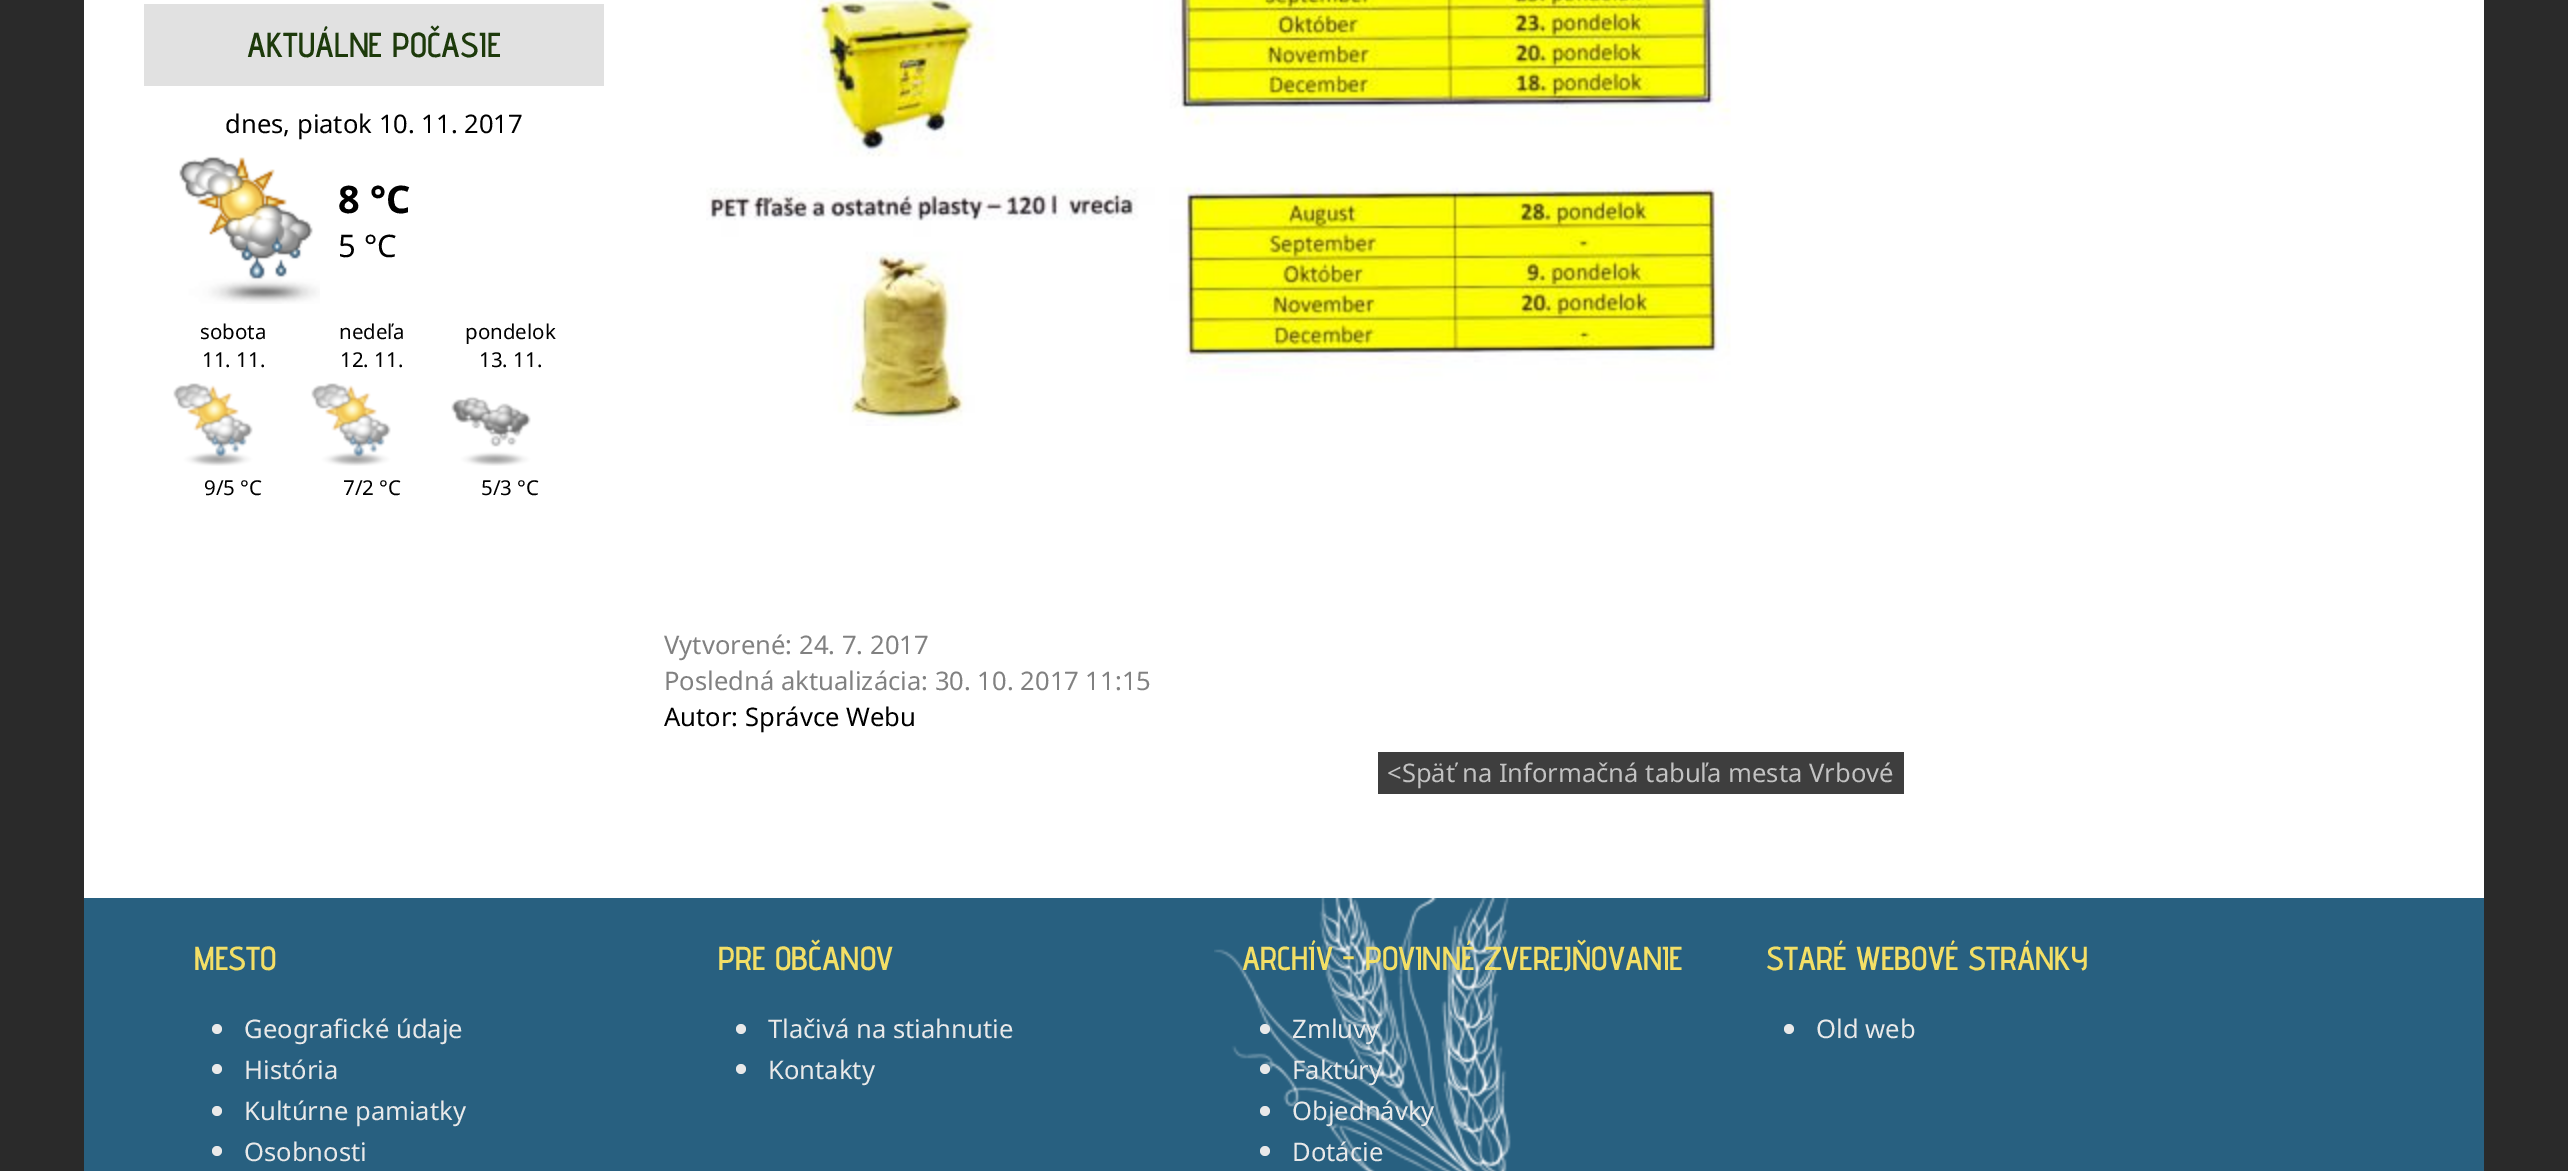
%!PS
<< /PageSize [2568 1171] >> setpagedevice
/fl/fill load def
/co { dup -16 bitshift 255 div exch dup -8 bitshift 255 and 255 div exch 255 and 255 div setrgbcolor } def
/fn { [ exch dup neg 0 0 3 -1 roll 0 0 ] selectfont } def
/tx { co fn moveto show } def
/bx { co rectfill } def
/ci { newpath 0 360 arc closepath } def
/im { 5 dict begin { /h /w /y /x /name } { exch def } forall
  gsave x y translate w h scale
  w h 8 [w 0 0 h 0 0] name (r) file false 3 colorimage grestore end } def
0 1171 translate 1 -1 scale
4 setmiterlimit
0 0 2568 1171 16#2A2A2A bx
84 0 2400 898 16#FFFFFF bx
144 4 460 82 16#E1E1E1 bx
(media/1.raw) 179 156 141 148 im
(media/2.raw) 173 383 80 83 im
(media/2.raw) 311 383 80 83 im
(media/3.raw) 451 396 80 70 im
(media/4.raw) 706 0 1025 426 im
1378 752 526 42 16#3E3E3E bx
84 898 2400 273 16#286080 bx
(media/5.raw) 1214 898 297 273 im
16#E9E9E9 co
217 1029 5 ci fl
217 1069 5 ci fl
217 1111 5 ci fl
217 1151 5 ci fl
741 1029 5 ci fl
741 1069 5 ci fl
1265 1029 5 ci fl
1265 1069 5 ci fl
1265 1111 5 ci fl
1265 1151 5 ci fl
1789 1029 5 ci fl
(AKTUÁLNE POČASIE) 247 57 /AdventPro-SemiBold 34.5 16#1D3A0B tx
(dnes, piatok 10. 11. 2017) 225 133 /NotoSans-Regular 25.6 16#000000 tx
(8 °C) 338 213 /NotoSans-Bold 38 16#000000 tx
(5 °C) 338 257 /NotoSans-Regular 31 16#000000 tx
(sobota) 200 339 /NotoSans-Regular 20.5 16#000000 tx
(11. 11.) 202 367 /NotoSans-Regular 20.5 16#000000 tx
(9/5 °C) 204 495 /NotoSans-Regular 20.5 16#000000 tx
(nedeľa) 339 339 /NotoSans-Regular 20.5 16#000000 tx
(12. 11.) 340 367 /NotoSans-Regular 20.5 16#000000 tx
(7/2 °C) 343 495 /NotoSans-Regular 20.5 16#000000 tx
(pondelok) 465 339 /NotoSans-Regular 20.5 16#000000 tx
(13. 11.) 479 367 /NotoSans-Regular 20.5 16#000000 tx
(5/3 °C) 481 495 /NotoSans-Regular 20.5 16#000000 tx
(Vytvorené: 24. 7. 2017) 664 654 /NotoSans-Regular 25.6 16#818181 tx
(Posledná aktualizácia: 30. 10. 2017 11:15) 664 690 /NotoSans-Regular 25.6 16#818181 tx
(Autor: Správce Webu) 664 726 /NotoSans-Regular 25.6 16#000000 tx
(<Späť na Informačná tabuľa mesta Vrbové) 1387 782 /NotoSans-Regular 25.6 16#C2C2C2 tx
(MESTO) 194 970 /AdventPro-SemiBold 33.25 16#F3DF66 tx
(Geografické údaje) 244 1038 /NotoSans-Regular 25.6 16#E9E9E9 tx
(História) 244 1079 /NotoSans-Regular 25.6 16#E9E9E9 tx
(Kultúrne pamiatky) 244 1120 /NotoSans-Regular 25.6 16#E9E9E9 tx
(Osobnosti) 244 1161 /NotoSans-Regular 25.6 16#E9E9E9 tx
(PRE OBČANOV) 718 970 /AdventPro-SemiBold 33.25 16#F3DF66 tx
(Tlačivá na stiahnutie) 768 1038 /NotoSans-Regular 25.6 16#E9E9E9 tx
(Kontakty) 768 1079 /NotoSans-Regular 25.6 16#E9E9E9 tx
(ARCHÍV - POVINNÉ ZVEREJŇOVANIE) 1242 970 /AdventPro-SemiBold 33.25 16#F3DF66 tx
(Zmluvy) 1292 1038 /NotoSans-Regular 25.6 16#E9E9E9 tx
(Faktúry) 1292 1079 /NotoSans-Regular 25.6 16#E9E9E9 tx
(Objednávky) 1292 1120 /NotoSans-Regular 25.6 16#E9E9E9 tx
(Dotácie) 1292 1161 /NotoSans-Regular 25.6 16#E9E9E9 tx
(STARÉ WEBOVÉ STRÁNKY) 1766 970 /AdventPro-SemiBold 33.25 16#F3DF66 tx
(Old web) 1816 1038 /NotoSans-Regular 25.6 16#E9E9E9 tx
showpage
